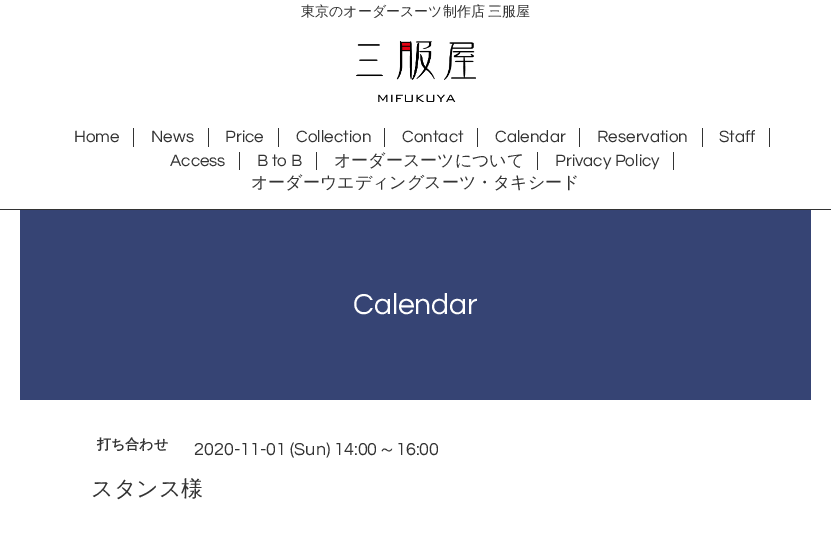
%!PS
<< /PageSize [831 545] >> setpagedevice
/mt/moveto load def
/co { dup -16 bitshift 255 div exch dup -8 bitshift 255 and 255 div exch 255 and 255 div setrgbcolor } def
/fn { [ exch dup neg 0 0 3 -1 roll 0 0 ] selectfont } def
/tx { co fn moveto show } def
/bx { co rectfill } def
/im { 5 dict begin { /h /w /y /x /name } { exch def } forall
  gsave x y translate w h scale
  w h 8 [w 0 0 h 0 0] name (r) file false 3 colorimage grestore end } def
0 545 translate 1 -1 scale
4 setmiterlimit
0 0 831 545 16#FFFFFF bx
0 209 831 1 16#333333 bx
(media/1.raw) 356 41 120 61 im
133 128 1 19 16#333333 bx
208 128 1 19 16#333333 bx
278 128 1 19 16#333333 bx
384 128 1 19 16#333333 bx
477 128 1 19 16#333333 bx
579 128 1 19 16#333333 bx
702 128 1 19 16#333333 bx
769 128 1 19 16#333333 bx
239 152 1 18 16#333333 bx
316 152 1 18 16#333333 bx
537 152 1 18 16#333333 bx
673 152 1 18 16#333333 bx
20 210 791 190 16#364474 bx
/WenQuanYiZenHei-Medium 14 fn
16#333333 co
301 16 mt -1 0 32 (東京のオーダースーツ制作店 三服屋) widthshow
(Home) 74 142 /Questrial-Regular 17 16#333333 tx
(News) 151 142 /Questrial-Regular 17 16#333333 tx
(Price) 225 142 /Questrial-Regular 17 16#333333 tx
(Collection) 296 142 /Questrial-Regular 17 16#333333 tx
(Contact) 402 142 /Questrial-Regular 17 16#333333 tx
(Calendar) 495 142 /Questrial-Regular 17 16#333333 tx
(Reservation) 597 142 /Questrial-Regular 17 16#333333 tx
(Staff) 719 142 /Questrial-Regular 17 16#333333 tx
(Access) 170 166 /Questrial-Regular 17 16#333333 tx
(B to B) 257 166 /Questrial-Regular 17 16#333333 tx
(オーダースーツについて) 334 166 /WenQuanYiZenHei-Medium 17 16#333333 tx
(Privacy Policy) 555 166 /Questrial-Regular 17 16#333333 tx
(オーダーウエディングスーツ・タキシード) 251 188 /WenQuanYiZenHei-Medium 17 16#333333 tx
(Calendar) 353 314 /Questrial-Regular 30 16#FFFFFF tx
(打ち合わせ) 97 449 /WenQuanYiZenHei-Bold 14 16#333333 tx
(2020-11-01 \(Sun\) 14:00) 194 455 /Questrial-Regular 18 16#333333 tx
(～) 378 455 /WenQuanYiZenHei-Medium 18 16#333333 tx
(16:00) 396 455 /Questrial-Regular 18 16#333333 tx
(スタンス様) 91 496 /WenQuanYiZenHei-Medium 22 16#333333 tx
showpage
